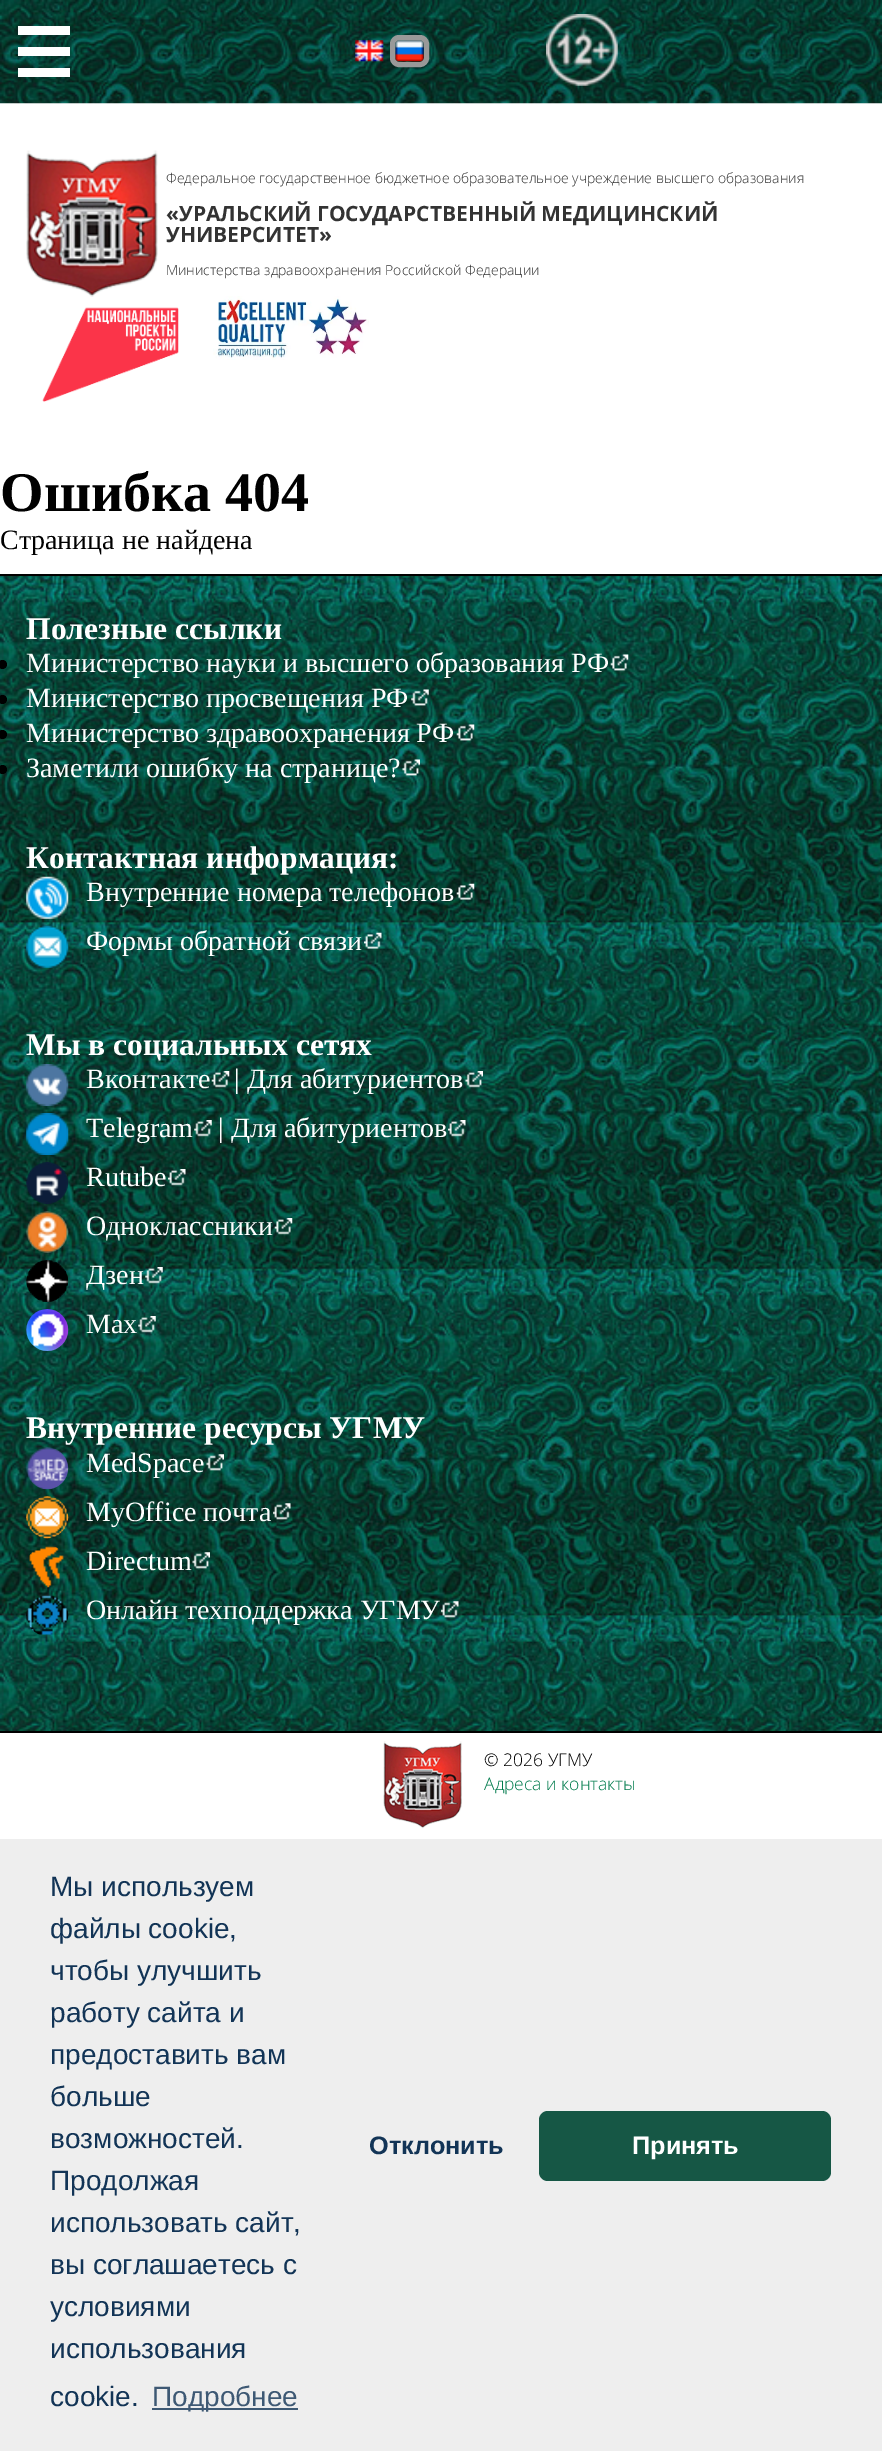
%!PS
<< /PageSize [882 2451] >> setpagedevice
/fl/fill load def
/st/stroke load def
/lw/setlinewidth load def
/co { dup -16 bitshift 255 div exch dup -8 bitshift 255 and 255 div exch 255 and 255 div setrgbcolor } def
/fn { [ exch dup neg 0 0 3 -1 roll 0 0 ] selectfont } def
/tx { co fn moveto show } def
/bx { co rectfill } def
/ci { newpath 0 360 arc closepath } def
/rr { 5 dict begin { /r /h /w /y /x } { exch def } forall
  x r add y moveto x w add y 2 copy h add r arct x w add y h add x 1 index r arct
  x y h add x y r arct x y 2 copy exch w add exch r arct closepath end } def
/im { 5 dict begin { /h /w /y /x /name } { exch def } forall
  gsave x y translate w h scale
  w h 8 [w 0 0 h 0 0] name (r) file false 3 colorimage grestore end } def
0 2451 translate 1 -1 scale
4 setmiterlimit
0 0 882 2451 16#FFFFFF bx
(media/1.raw) 0 0 882 104 im
18 26 52 9 16#FFFFFF bx
18 47 52 9 16#FFFFFF bx
18 68 52 9 16#FFFFFF bx
(media/2.raw) 355 40 29 22 im
(media/3.raw) 395 40 29 22 im
16#999999 co
5 lw
392.5 37.5 34 27 6.5 rr st
(media/4.raw) 546 14 72 72 im
(media/5.raw) 26 150 132 147 im
(media/6.raw) 42 307 137 95 im
(media/7.raw) 213 296 156 64 im
(media/8.raw) 0 576 882 1155 im
0 574 882 2 16#000000 bx
0 1731 882 2 16#000000 bx
2.5 664.5 4.5 ci fl
(media/9.raw) 610 654 19 17 im
2.5 699.5 4.5 ci fl
(media/10.raw) 411 689 18 17 im
2.5 734.5 4.5 ci fl
(media/11.raw) 456 724 19 17 im
2.5 769.5 4.5 ci fl
(media/12.raw) 402 759 18 17 im
(media/13.raw) 26 876 43 43 im
(media/14.raw) 456 883 19 17 im
(media/15.raw) 26 925 43 43 im
(media/16.raw) 364 932 18 17 im
(media/17.raw) 26 1064 43 42 im
(media/18.raw) 211 1071 19 17 im
(media/19.raw) 465 1071 18 17 im
(media/20.raw) 26 1113 43 42 im
(media/21.raw) 194 1120 18 17 im
(media/22.raw) 448 1120 18 17 im
(media/23.raw) 26 1162 43 42 im
(media/24.raw) 168 1169 18 17 im
(media/25.raw) 26 1211 43 42 im
(media/26.raw) 274 1218 19 17 im
(media/27.raw) 26 1260 43 42 im
(media/28.raw) 145 1267 18 17 im
(media/29.raw) 26 1309 43 42 im
(media/30.raw) 138 1316 18 17 im
(media/31.raw) 26 1447 43 43 im
(media/32.raw) 206 1454 18 17 im
(media/33.raw) 26 1496 43 43 im
(media/34.raw) 273 1503 18 17 im
(media/35.raw) 29 1546 35 42 im
(media/36.raw) 192 1552 18 17 im
(media/37.raw) 26 1595 43 40 im
(media/38.raw) 441 1601 18 17 im
(media/39.raw) 383 1741 79 88 im
0 1839 882 612 16#EEEEEE bx
152 2408 146 2 16#3E5974 bx
16#165745 co
539 2111 292 70 9 rr fl
(Федеральное государственное бюджетное образовательное учреждение высшего образования) 166 183 /OpenSans-Light 14 16#333333 tx
(«УРАЛЬСКИЙ ГОСУДАРСТВЕННЫЙ МЕДИЦИНСКИЙ) 166 221 /OpenSans-Bold 21 16#333333 tx
(УНИВЕРСИТЕТ») 166 242 /OpenSans-Bold 21 16#333333 tx
(Министерства здравоохранения Российской Федерации) 166 275 /OpenSans-Light 14 16#333333 tx
(Ошибка 404) 0 511 /LiberationSerif-Bold 56 16#000000 tx
(Страница не найдена) 0 549 /LiberationSerif-Regular 28 16#000000 tx
(Полезные ссылки) 26 639 /LiberationSerif-Bold 31.5 16#FFFFFF tx
(Министерство науки и высшего образования РФ) 26 672 /LiberationSerif-Regular 28 16#FFFFFF tx
(Министерство просвещения РФ) 26 707 /LiberationSerif-Regular 28 16#FFFFFF tx
(Министерство здравоохранения РФ) 26 742 /LiberationSerif-Regular 28 16#FFFFFF tx
(Заметили ошибку на странице?) 26 777 /LiberationSerif-Regular 28 16#FFFFFF tx
(Контактная информация:) 26 868 /LiberationSerif-Bold 31.5 16#FFFFFF tx
(Внутренние номера телефонов) 86 901 /LiberationSerif-Regular 28 16#FFFFFF tx
(Формы обратной связи) 86 950 /LiberationSerif-Regular 28 16#FFFFFF tx
(Мы в социальных сетях) 26 1055 /LiberationSerif-Bold 31.5 16#FFFFFF tx
(Вконтакте) 86 1088 /LiberationSerif-Regular 28 16#FFFFFF tx
(| Для абитуриентов) 234 1088 /LiberationSerif-Regular 28 16#FFFFFF tx
(Telegram) 86 1137 /LiberationSerif-Regular 28 16#FFFFFF tx
(| Для абитуриентов) 218 1137 /LiberationSerif-Regular 28 16#FFFFFF tx
(Rutube) 86 1186 /LiberationSerif-Regular 28 16#FFFFFF tx
(Одноклассники) 86 1235 /LiberationSerif-Regular 28 16#FFFFFF tx
(Дзен) 86 1284 /LiberationSerif-Regular 28 16#FFFFFF tx
(Max) 86 1333 /LiberationSerif-Regular 28 16#FFFFFF tx
(Внутренние ресурсы УГМУ) 26 1438 /LiberationSerif-Bold 31.5 16#FFFFFF tx
(MedSpace) 86 1472 /LiberationSerif-Regular 28 16#FFFFFF tx
(MyOffice почта) 86 1521 /LiberationSerif-Regular 28 16#FFFFFF tx
(Directum) 86 1570 /LiberationSerif-Regular 28 16#FFFFFF tx
(Онлайн техподдержка УГМУ) 86 1619 /LiberationSerif-Regular 28 16#FFFFFF tx
(© 2026 УГМУ) 484 1766 /OpenSans-Light 17.5 16#000000 tx
(Адреса и контакты) 484 1790 /OpenSans-Light 17.5 16#007B4C tx
(Мы используем) 50 1896 /LiberationSans-Regular 28 16#123456 tx
(файлы cookie,) 50 1938 /LiberationSans-Regular 28 16#123456 tx
(чтобы улучшить) 50 1980 /LiberationSans-Regular 28 16#123456 tx
(работу сайта и) 50 2022 /LiberationSans-Regular 28 16#123456 tx
(предоставить вам) 50 2064 /LiberationSans-Regular 28 16#123456 tx
(больше) 50 2106 /LiberationSans-Regular 28 16#123456 tx
(возможностей.) 50 2148 /LiberationSans-Regular 28 16#123456 tx
(Продолжая) 50 2190 /LiberationSans-Regular 28 16#123456 tx
(использовать сайт,) 50 2232 /LiberationSans-Regular 28 16#123456 tx
(вы соглашаетесь с) 50 2274 /LiberationSans-Regular 28 16#123456 tx
(условиями) 50 2316 /LiberationSans-Regular 28 16#123456 tx
(использования) 50 2358 /LiberationSans-Regular 28 16#123456 tx
(cookie.) 50 2406 /LiberationSans-Regular 28 16#123456 tx
(Подробнее) 152 2406 /LiberationSans-Regular 28 16#3E5974 tx
(Отклонить) 369 2154 /LiberationSans-Bold 25.25 16#123456 tx
(Принять) 632 2154 /LiberationSans-Bold 25.25 16#FFFFFF tx
showpage
